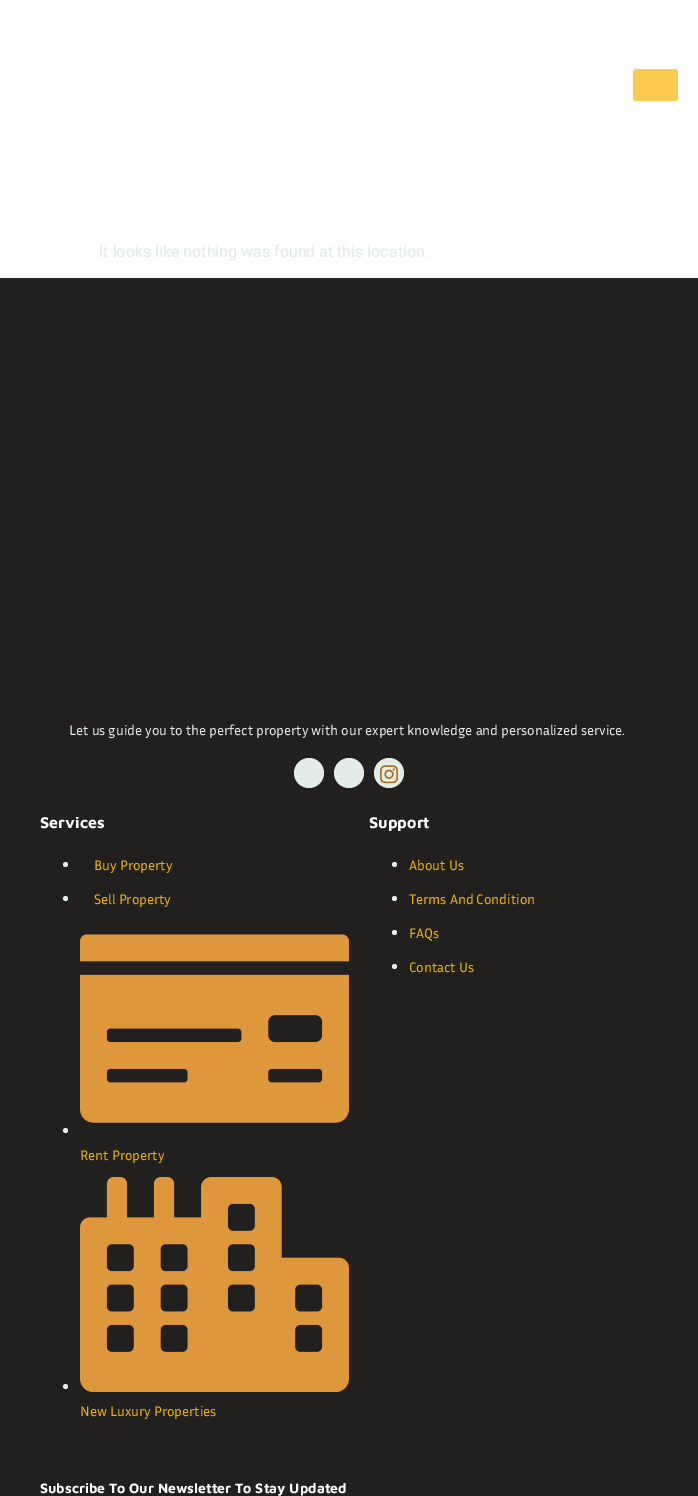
%!PS
<< /PageSize [698 1496] >> setpagedevice
/fl/fill load def
/co { dup -16 bitshift 255 div exch dup -8 bitshift 255 and 255 div exch 255 and 255 div setrgbcolor } def
/fn { [ exch dup neg 0 0 3 -1 roll 0 0 ] selectfont } def
/tx { co fn moveto show } def
/bx { co rectfill } def
/ci { newpath 0 360 arc closepath } def
/rr { 5 dict begin { /r /h /w /y /x } { exch def } forall
  x r add y moveto x w add y 2 copy h add r arct x w add y h add x 1 index r arct
  x y h add x y r arct x y 2 copy exch w add exch r arct closepath end } def
/im { 5 dict begin { /h /w /y /x /name } { exch def } forall
  gsave x y translate w h scale
  w h 8 [w 0 0 h 0 0] name (r) file false 3 colorimage grestore end } def
0 1496 translate 1 -1 scale
4 setmiterlimit
0 0 698 1496 16#FFFFFF bx
16#FACA51 co
633 69 45 32 3 rr fl
0 278 698 1218 16#221F1F bx
16#E3ECE7 co
309 773 15 ci fl
349 773 15 ci fl
389 773 15 ci fl
(media/1.raw) 380 765 18 19 im
65.5 864.5 2.5 ci fl
65.5 898.5 2.5 ci fl
(media/2.raw) 80 934 269 189 im
65.5 1130.5 2.5 ci fl
65.5 1386.5 2.5 ci fl
(media/3.raw) 80 1177 269 215 im
394.5 864.5 2.5 ci fl
394.5 898.5 2.5 ci fl
394.5 932.5 2.5 ci fl
394.5 966.5 2.5 ci fl
(It looks like nothing was found at this location.) 99 257 /Roboto-Regular 16 16#E3ECE7 tx
(Let us guide you to the perfect property with our expert knowledge and personalized service.) 69 735 /InriaSans-Regular 14 16#E3ECE7 tx
(Services) 40 828 /MavenPro-Bold 16 16#FFFFFF tx
(Buy Property) 94 870 /InriaSans-Regular 14 16#ECB209 tx
(Sell Property) 94 904 /InriaSans-Regular 14 16#ECB209 tx
(Rent Property) 80 1160 /InriaSans-Regular 14 16#ECB209 tx
(New Luxury Properties) 80 1416 /InriaSans-Regular 14 16#ECB209 tx
(Support) 369 828 /MavenPro-Bold 16 16#FFFFFF tx
(About Us) 409 870 /InriaSans-Regular 14 16#ECB209 tx
(Terms And Condition) 409 904 /InriaSans-Regular 14 16#ECB209 tx
(FAQs) 409 938 /InriaSans-Regular 14 16#ECB209 tx
(Contact Us) 409 972 /InriaSans-Regular 14 16#ECB209 tx
(Subscribe To Our Newsletter To Stay Updated) 40 1493 /MavenPro-Bold 14 16#FFFFFF tx
showpage
